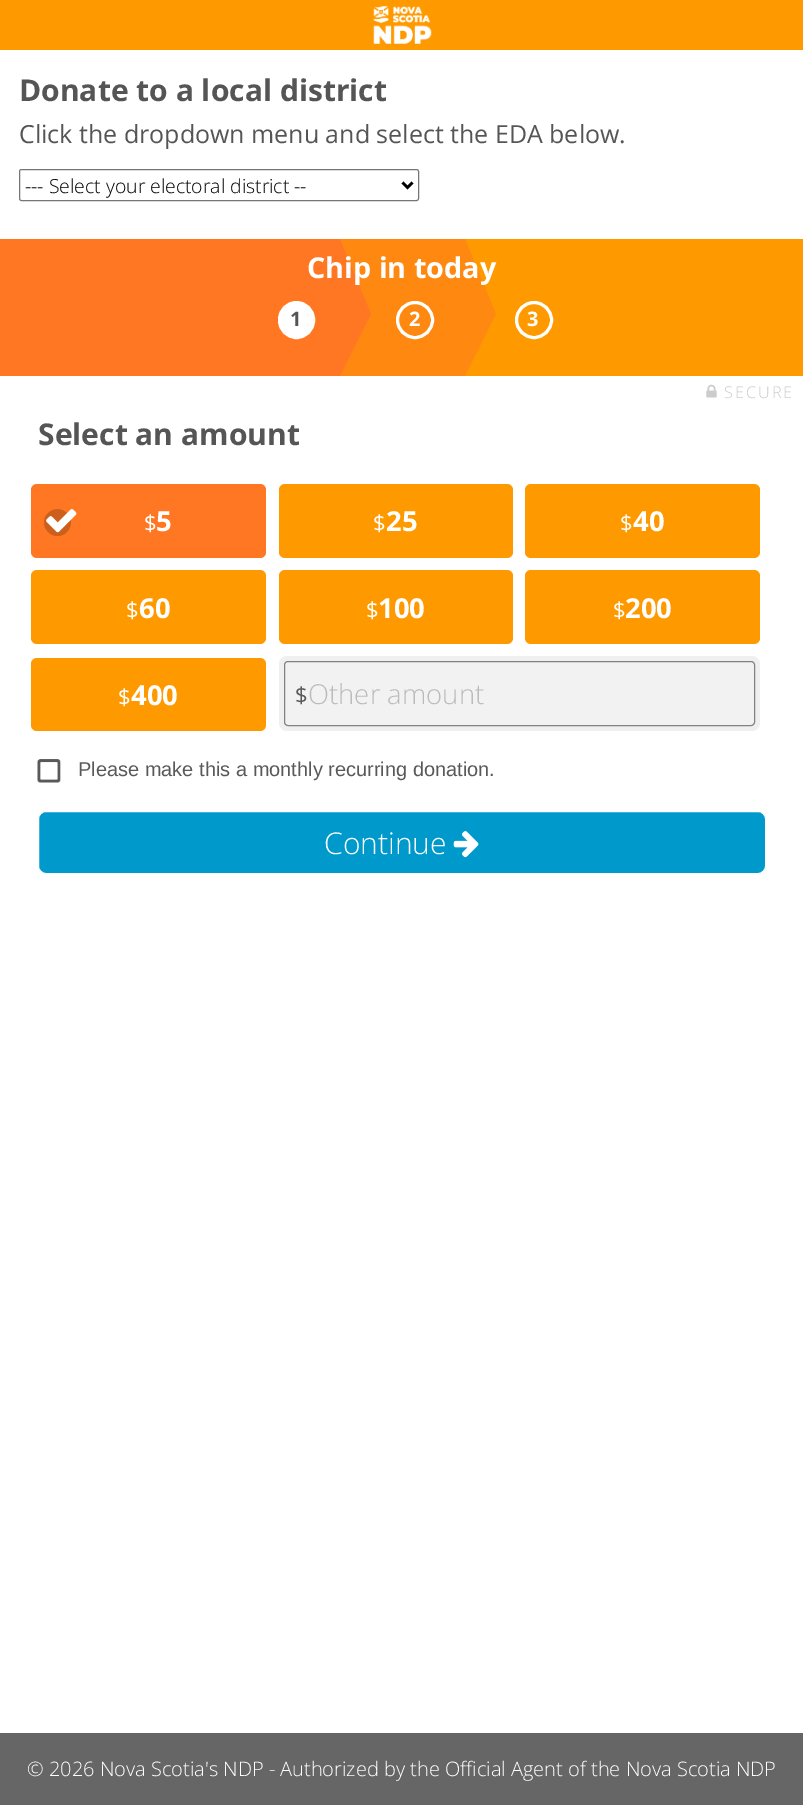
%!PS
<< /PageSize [803 1805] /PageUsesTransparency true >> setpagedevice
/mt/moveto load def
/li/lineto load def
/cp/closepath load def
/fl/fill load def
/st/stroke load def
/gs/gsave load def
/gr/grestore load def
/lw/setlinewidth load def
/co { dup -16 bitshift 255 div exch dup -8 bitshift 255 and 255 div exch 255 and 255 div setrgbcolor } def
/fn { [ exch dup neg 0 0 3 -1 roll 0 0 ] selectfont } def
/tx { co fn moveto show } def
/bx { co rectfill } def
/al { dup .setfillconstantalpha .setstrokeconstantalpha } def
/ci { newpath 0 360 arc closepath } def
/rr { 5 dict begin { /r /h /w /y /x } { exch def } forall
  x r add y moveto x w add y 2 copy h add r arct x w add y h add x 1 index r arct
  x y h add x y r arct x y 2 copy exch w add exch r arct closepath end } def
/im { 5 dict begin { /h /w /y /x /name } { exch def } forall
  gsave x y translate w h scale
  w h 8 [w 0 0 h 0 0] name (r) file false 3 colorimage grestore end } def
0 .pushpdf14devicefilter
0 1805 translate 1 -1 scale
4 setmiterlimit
0 0 803 1805 16#FFFFFF bx
0 0 803 50 16#FF9900 bx
(media/1.raw) 373 6 59 38 im
16#767676 co
19.5 169.5 399 31 2 rr st
16#000000 co
2.5 lw
402.5 182.5 mt 407.5 187.5 li 412.5 182.5 li st
0 239 340 137 16#FF7722 bx
16#FFFFFF co
279.5 302.5 34 35 17 rr gs fl gr
3 lw
st
340 239 125 137 16#FF8811 bx
16#FF7722 co
340 376 mt 340 239 li 371 314 li cp fl
16#FFFFFF co
415 320 17.5 ci st
465 239 338 137 16#FF9900 bx
16#FF8811 co
465 376 mt 465 239 li 496 314 li cp fl
16#FFFFFF co
534 320 17.5 ci st
(media/2.raw) 706 384 11 14 im
16#FF7722 co
31 484 235 74 6 rr fl
16#CC5F1B co
57.5 522.5 13.5 ci fl
(media/3.raw) 46 509 31 24 im
16#FF9900 co
279 484 234 74 6 rr fl
525 484 235 74 6 rr fl
31 570 235 74 6 rr fl
279 570 234 74 6 rr fl
525 570 235 74 6 rr fl
31 658 235 73 6 rr fl
16#F0F0F0 co
279 656 481 75 8 rr fl
0.1 al
16#FFFFFF co
284.5 661.5 470 64 3.5 rr fl
1 al
16#808285 co
1 lw
284.5 661.5 470 64 3.5 rr st
(media/4.raw) 37 759 24 24 im
16#0099CC co
38.5 811.5 727 62 7.5 rr gs fl gr
16#FFFFFF co
st
(media/5.raw) 453 831 26 27 im
0 1733 803 72 16#666666 bx
(Donate to a local district) 19 101 /OpenSans-Bold 30 16#555555 tx
(Click the dropdown menu and select the EDA below.) 19 143 /OpenSans-Regular 25 16#555555 tx
(--- Select your electoral district --) 25 193 /OpenSans-Light 19.4 16#000000 tx
(Chip in today) 307 278 /OpenSans-Bold 28.75 16#FFFFFF tx
(1) 290 326 /OpenSans-Bold 20 16#555555 tx
(2) 409 326 /OpenSans-Bold 20 16#FFFFFF tx
(3) 527 326 /OpenSans-Bold 20 16#FFFFFF tx
/OpenSans-Light 16.25 fn
16#CCCCCC co
724 398 mt 2 0 (SECURE) ashow
(Select an amount) 38 445 /OpenSans-Bold 30 16#555555 tx
($) 144 531 /OpenSans-Regular 22 16#FFFFFF tx
(5) 156 531 /OpenSans-Bold 27.5 16#FFFFFF tx
($) 373 531 /OpenSans-Regular 22 16#FFFFFF tx
(25) 386 531 /OpenSans-Bold 27.5 16#FFFFFF tx
($) 620 531 /OpenSans-Regular 22 16#FFFFFF tx
(40) 633 531 /OpenSans-Bold 27.5 16#FFFFFF tx
($) 126 618 /OpenSans-Regular 22 16#FFFFFF tx
(60) 139 618 /OpenSans-Bold 27.5 16#FFFFFF tx
($) 366 618 /OpenSans-Regular 22 16#FFFFFF tx
(100) 378 618 /OpenSans-Bold 27.5 16#FFFFFF tx
($) 613 618 /OpenSans-Regular 22 16#FFFFFF tx
(200) 625 618 /OpenSans-Bold 27.5 16#FFFFFF tx
($) 118 705 /OpenSans-Regular 22 16#FFFFFF tx
(400) 131 705 /OpenSans-Bold 27.5 16#FFFFFF tx
($) 295 703 /OpenSans-Regular 22 16#58595B tx
(Other amount) 308 704 /OpenSans-Light 27.5 16#BBBBBB tx
(Please make this a monthly recurring donation.) 78 776 /LiberationSans-Regular 20 16#58595B tx
(Continue) 324 854 /OpenSans-Light 30 16#FFFFFF tx
(© 2026 Nova Scotia's NDP - Authorized by the Official Agent of the Nova Scotia NDP) 27 1776 /OpenSans-Light 20 16#FFFFFF tx
.poppdf14devicefilter showpage
